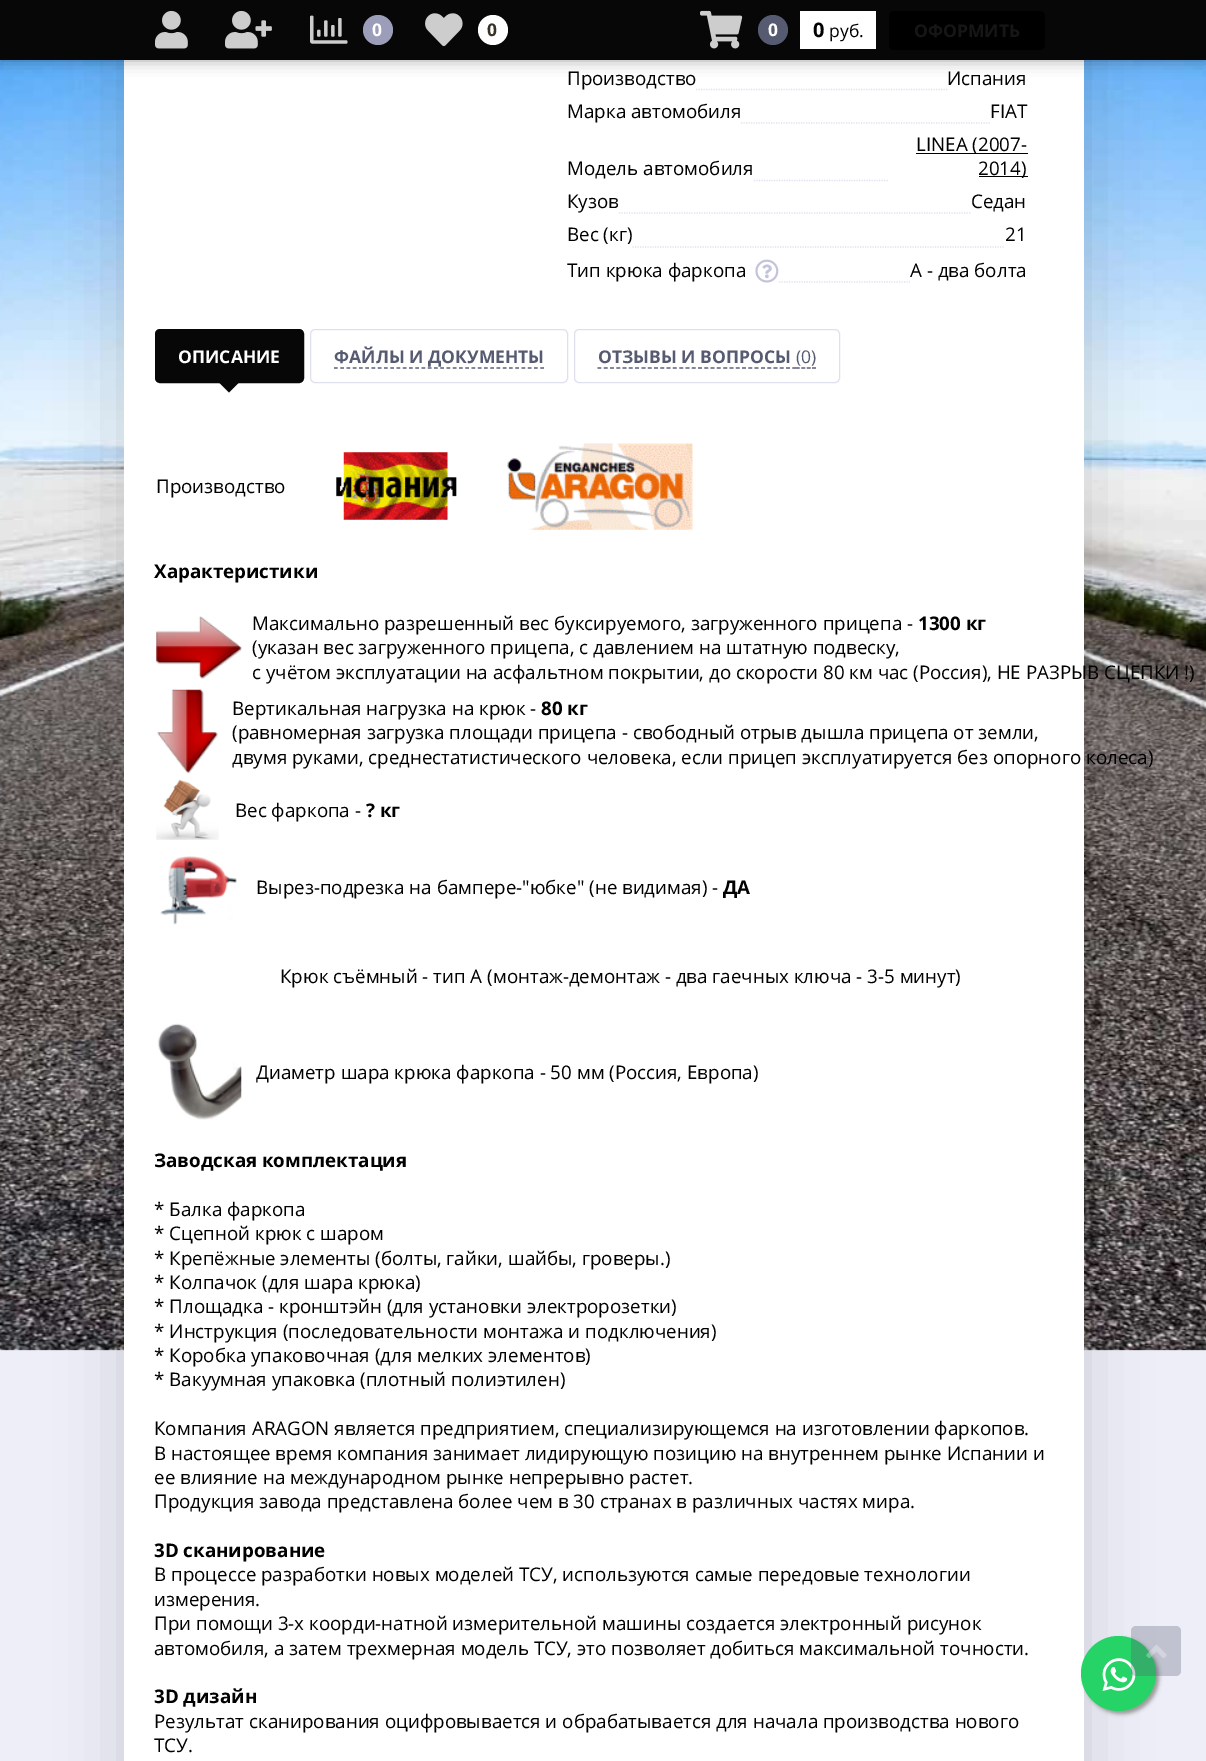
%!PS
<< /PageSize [1206 1761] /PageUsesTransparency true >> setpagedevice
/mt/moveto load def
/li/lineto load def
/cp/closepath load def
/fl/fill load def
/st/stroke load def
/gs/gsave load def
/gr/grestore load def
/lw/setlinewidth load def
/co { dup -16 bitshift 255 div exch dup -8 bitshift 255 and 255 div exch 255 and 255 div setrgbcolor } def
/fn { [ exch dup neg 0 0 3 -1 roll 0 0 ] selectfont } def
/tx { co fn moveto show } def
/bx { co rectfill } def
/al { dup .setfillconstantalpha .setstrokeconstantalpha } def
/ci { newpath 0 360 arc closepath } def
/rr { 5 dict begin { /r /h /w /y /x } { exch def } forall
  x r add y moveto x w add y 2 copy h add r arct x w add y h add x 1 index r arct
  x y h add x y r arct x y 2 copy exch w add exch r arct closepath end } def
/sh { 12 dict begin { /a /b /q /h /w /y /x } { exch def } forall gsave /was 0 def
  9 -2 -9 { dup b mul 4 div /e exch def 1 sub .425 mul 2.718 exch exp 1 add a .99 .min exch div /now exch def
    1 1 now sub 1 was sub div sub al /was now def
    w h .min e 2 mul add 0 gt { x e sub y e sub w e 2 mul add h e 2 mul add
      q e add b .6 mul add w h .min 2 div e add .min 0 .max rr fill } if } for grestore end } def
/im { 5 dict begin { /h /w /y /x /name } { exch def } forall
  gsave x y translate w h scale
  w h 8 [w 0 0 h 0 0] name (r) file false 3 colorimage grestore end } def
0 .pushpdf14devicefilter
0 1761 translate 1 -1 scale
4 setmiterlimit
0 0 1206 1761 16#EDEEF8 bx
(media/1.raw) 0 60 1206 1291 im
16#000000 co
124 -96 960 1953 0 32 .15 sh
124 60 960 1701 16#FFFFFF bx
16#000000 co
0 0 1206 60 0 7.5 .36 sh
0 0 1206 60 16#070707 bx
(media/2.raw) 155 10 33 39 im
(media/3.raw) 225 10 47 39 im
(media/4.raw) 310 15 38 29 im
16#9B9DB9 co
378 30 15 ci fl
(media/5.raw) 425 13 38 34 im
16#FFFFFF co
493 30 15 ci fl
(media/6.raw) 700 10 43 39 im
16#575B71 co
773 30 15 ci fl
800 11 76 38 16#FFFFFF bx
16#000000 co
889 11 156 39 5 rr fl
16#DEE0EE co
1.2 lw
[1.25 1.25] 0 setdash
696 89.5 mt 947.5 89.5 li st
741 123 mt 990 123 li st
916 153 112 1 16#000000 bx
979 176 49 1 16#000000 bx
16#DEE0EE co
754 180.5 mt 889 180.5 li st
619 213 mt 971 213 li st
632.5 247 mt 1005 247 li st
(media/7.raw) 755 259 24 24 im
779 282 mt 910 282 li st
16#070707 co
156.5 330.5 146 51 3.5 rr gs fl gr
3 lw
[] 0 setdash
st
219 382.5 mt 239 382.5 li 229 392.5 li cp fl
16#DEE0EE co
1 lw
310.5 329.5 257 53 4.5 rr st
16#575B71 co
1.2 lw
[3.75 2.5] 0 setdash
334 368 mt 544 368 li st
16#DEE0EE co
1 lw
[] 0 setdash
574.5 329.5 265 53 4.5 rr st
16#575B71 co
1.2 lw
[3.75 2.54] 0 setdash
597.5 368 mt 796 368 li st
[3.75 1.66] 0 setdash
796 368 mt 816 368 li st
(media/8.raw) 336 452 121 68 im
(media/9.raw) 507 443 186 87 im
(media/10.raw) 156 616 86 63 im
(media/11.raw) 157 689 61 85 im
(media/12.raw) 156 779 63 61 im
(media/13.raw) 160 856 77 69 im
(media/14.raw) 157 1023 85 97 im
16#999999 co
1084 1639 75 75 37.5 2 1 sh
16#25D366 co
1118.5 1673.5 37.5 ci fl
(media/16.raw) 1102 1658 34 33 im
0.3 al
16#575B71 co
1131 1626 50 50 5 rr fl
1 al
(media/15.raw) 1146 1645 21 13 im
(0) 372 36 /OpenSans-Bold 17.5 16#FFFFFF tx
(0) 487 36 /OpenSans-Bold 17.5 16#363224 tx
(0) 768 36 /OpenSans-Bold 17.5 16#FFFFFF tx
(0) 813 37 /OpenSans-Bold 20 16#000000 tx
(руб.) 829 37 /OpenSans-Regular 17.5 16#000000 tx
(ОФОРМИТЬ) 914 37 /OpenSans-Bold 17.5 16#161616 tx
(Производство) 567 85 /OpenSans-Regular 18.75 16#000000 tx
(Испания) 947 85 /OpenSans-Regular 18.75 16#000000 tx
(Марка автомобиля) 567 118 /OpenSans-Regular 18.75 16#000000 tx
(FIAT) 990 118 /OpenSans-Regular 18.75 16#000000 tx
(Модель автомобиля) 567 175 /OpenSans-Regular 18.75 16#000000 tx
(LINEA \(2007-) 916 151 /OpenSans-Regular 18.75 16#000000 tx
(2014\)) 978 175 /OpenSans-Regular 18.75 16#000000 tx
(Кузов) 567 208 /OpenSans-Regular 18.75 16#000000 tx
(Седан) 971 208 /OpenSans-Regular 18.75 16#000000 tx
(Вес \(кг\)) 567 241 /OpenSans-Regular 18.75 16#000000 tx
(21) 1005 241 /OpenSans-Regular 18.75 16#000000 tx
(Тип крюка фаркопа) 567 277 /OpenSans-Regular 18.75 16#000000 tx
(А - два болта) 910 277 /OpenSans-Regular 18.75 16#000000 tx
(ОПИСАНИЕ) 178 363 /OpenSans-Bold 17.5 16#FFFFFF tx
(ФАЙЛЫ И ДОКУМЕНТЫ) 334 363 /OpenSans-Bold 17.5 16#575B71 tx
(ОТЗЫВЫ И ВОПРОСЫ) 598 363 /OpenSans-Bold 17.5 16#575B71 tx
(\(0\)) 796 363 /OpenSans-Regular 17.5 16#575B71 tx
(Производство) 156 493 /OpenSans-Regular 18.75 16#000000 tx
(Характеристики) 154 578 /OpenSans-Bold 18.75 16#000000 tx
(Максимально разрешенный вес буксируемого, загруженного прицепа -) 252 630 /OpenSans-Regular 18.75 16#000000 tx
(1300 кг) 918 630 /OpenSans-Bold 18.75 16#000000 tx
(\(указан вес загруженного прицепа, с давлением на штатную подвеску,) 252 654 /OpenSans-Regular 18.75 16#000000 tx
(с учётом эксплуатации на асфальтном покрытии, до скорости 80 км час \(Россия\), НЕ РАЗРЫВ СЦЕПКИ !\)) 252 679 /OpenSans-Regular 18.75 16#000000 tx
(Вертикальная нагрузка на крюк -) 232 715 /OpenSans-Regular 18.75 16#000000 tx
(80 кг) 541 715 /OpenSans-Bold 18.75 16#000000 tx
(\(равномерная загрузка площади прицепа - свободный отрыв дышла прицепа от земли,) 232 739 /OpenSans-Regular 18.75 16#000000 tx
(двумя руками, среднестатистического человека, если прицеп эксплуатируется без опорного колеса\)) 232 764 /OpenSans-Regular 18.75 16#000000 tx
(Вес фаркопа -) 235 817 /OpenSans-Regular 18.75 16#000000 tx
(? кг) 366 817 /OpenSans-Bold 18.75 16#000000 tx
(Вырез-подрезка на бампере-"юбке" \(не видимая\) -) 256 894 /OpenSans-Regular 18.75 16#000000 tx
(ДА) 723 894 /OpenSans-Bold 18.75 16#000000 tx
(Крюк съёмный - тип A \(монтаж-демонтаж - два гаечных ключа - 3-5 минут\)) 280 983 /OpenSans-Regular 18.75 16#000000 tx
(Диаметр шара крюка фаркопа - 50 мм \(Россия, Европа\)) 256 1079 /OpenSans-Regular 18.75 16#000000 tx
(Заводская комплектация) 154 1167 /OpenSans-Bold 18.75 16#000000 tx
(* Балка фаркопа) 154 1216 /OpenSans-Regular 18.75 16#000000 tx
(* Сцепной крюк с шаром) 154 1240 /OpenSans-Regular 18.75 16#000000 tx
(* Крепёжные элементы \(болты, гайки, шайбы, гроверы.\)) 154 1265 /OpenSans-Regular 18.75 16#000000 tx
(* Колпачок \(для шара крюка\)) 154 1289 /OpenSans-Regular 18.75 16#000000 tx
(* Площадка - кронштэйн \(для установки электророзетки\)) 154 1313 /OpenSans-Regular 18.75 16#000000 tx
(* Инструкция \(последовательности монтажа и подключения\)) 154 1338 /OpenSans-Regular 18.75 16#000000 tx
(* Коробка упаковочная \(для мелких элементов\)) 154 1362 /OpenSans-Regular 18.75 16#000000 tx
(* Вакуумная упаковка \(плотный полиэтилен\)) 154 1386 /OpenSans-Regular 18.75 16#000000 tx
(Компания ARAGON является предприятием, специализирующемся на изготовлении фаркопов.) 154 1435 /OpenSans-Regular 18.75 16#000000 tx
(В настоящее время компания занимает лидирующую позицию на внутреннем рынке Испании и) 154 1460 /OpenSans-Regular 18.75 16#000000 tx
(ее влияние на международном рынке непрерывно растет.) 154 1484 /OpenSans-Regular 18.75 16#000000 tx
(Продукция завода представлена более чем в 30 странах в различных частях мира.) 154 1508 /OpenSans-Regular 18.75 16#000000 tx
(3D сканирование) 154 1557 /OpenSans-Bold 18.75 16#000000 tx
(В процессе разработки новых моделей ТСУ, используются самые передовые технологии) 154 1581 /OpenSans-Regular 18.75 16#000000 tx
(измерения.) 154 1606 /OpenSans-Regular 18.75 16#000000 tx
(При помощи 3-х коорди-натной измерительной машины создается электронный рисунок) 154 1630 /OpenSans-Regular 18.75 16#000000 tx
(автомобиля, а затем трехмерная модель ТСУ, это позволяет добиться максимальной точности.) 154 1655 /OpenSans-Regular 18.75 16#000000 tx
(3D дизайн) 154 1703 /OpenSans-Bold 18.75 16#000000 tx
(Результат сканирования оцифровывается и обрабатывается для начала производства нового) 154 1728 /OpenSans-Regular 18.75 16#000000 tx
(ТСУ.) 154 1752 /OpenSans-Regular 18.75 16#000000 tx
.poppdf14devicefilter showpage
